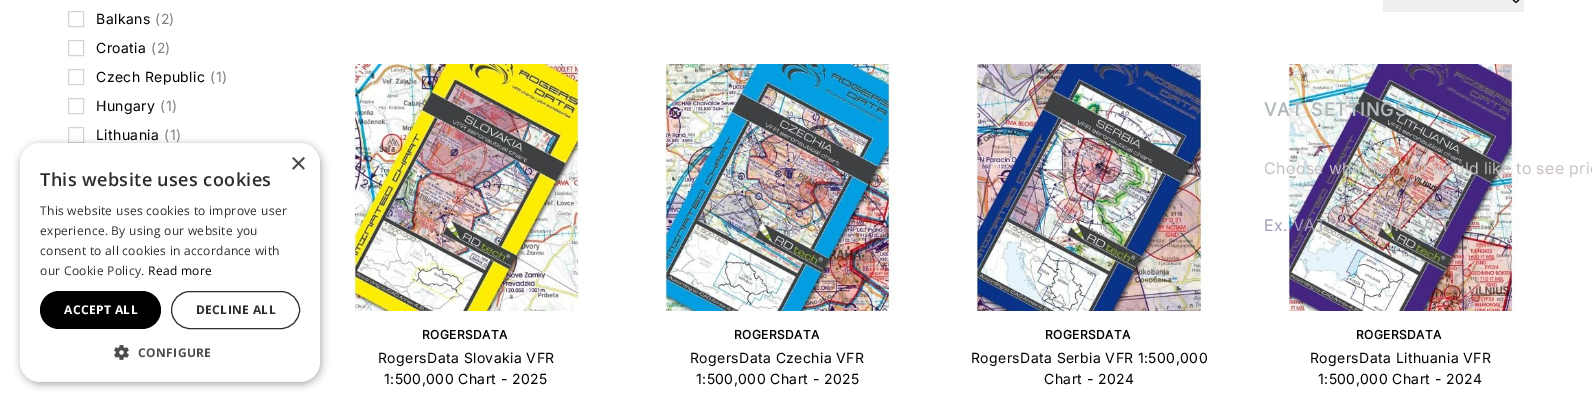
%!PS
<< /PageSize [1592 402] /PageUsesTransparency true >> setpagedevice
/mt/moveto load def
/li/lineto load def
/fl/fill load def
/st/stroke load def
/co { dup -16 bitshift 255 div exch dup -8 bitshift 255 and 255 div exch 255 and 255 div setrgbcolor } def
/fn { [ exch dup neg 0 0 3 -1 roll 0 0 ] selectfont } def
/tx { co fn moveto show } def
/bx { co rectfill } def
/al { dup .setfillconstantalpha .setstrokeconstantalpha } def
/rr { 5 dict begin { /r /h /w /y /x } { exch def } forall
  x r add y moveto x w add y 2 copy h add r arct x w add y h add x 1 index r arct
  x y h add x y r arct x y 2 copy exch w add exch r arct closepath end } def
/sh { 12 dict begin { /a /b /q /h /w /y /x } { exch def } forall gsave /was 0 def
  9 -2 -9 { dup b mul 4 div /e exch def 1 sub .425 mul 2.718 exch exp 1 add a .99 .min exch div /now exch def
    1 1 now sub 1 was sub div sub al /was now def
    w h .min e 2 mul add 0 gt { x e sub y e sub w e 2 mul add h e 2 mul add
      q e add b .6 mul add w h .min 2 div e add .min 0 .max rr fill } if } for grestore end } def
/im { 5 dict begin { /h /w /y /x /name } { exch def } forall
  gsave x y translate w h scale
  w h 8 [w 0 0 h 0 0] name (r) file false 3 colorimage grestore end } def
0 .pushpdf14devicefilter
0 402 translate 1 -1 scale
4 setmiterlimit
0 0 1592 402 16#FFFFFF bx
16#D4D4D8 co
68.5 11.5 15 15 rectstroke
68.5 40.5 15 15 rectstroke
68.5 69.5 15 15 rectstroke
68.5 98.5 15 15 rectstroke
68.5 127.5 15 15 rectstroke
1383 0 141 12 16#EFEFEF bx
16#000000 co
1510.5 -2.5 mt 1516 2.5 li 1521.5 -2.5 li st
(media/1.raw) 353 64 232 247 im
(media/2.raw) 664 64 232 247 im
(media/3.raw) 975 64 233 247 im
(media/4.raw) 1287 64 232 247 im
21 145 300 239 20 4 .35 sh
16#FFFFFF co
20 143 300 239 20 rr fl
16#000000 co
40 291 121 38 19 rr fl
16#2D2D2D co
171.5 291.5 128 37 18.5 rr st
(media/5.raw) 114 345 15 15 im
/Inter-Regular 14 fn
16#000000 co
96 24 mt .4 0 (Balkans) ashow
16#808080 co
155 24 mt .4 0 (\(2\)) ashow
16#000000 co
96 53 mt .4 0 (Croatia) ashow
16#808080 co
151 53 mt .4 0 (\(2\)) ashow
16#000000 co
96 82 mt .4 0 (Czech Republic) ashow
16#808080 co
210 82 mt .4 0 (\(1\)) ashow
16#000000 co
96 111 mt .4 0 (Hungary) ashow
16#808080 co
160 111 mt .4 0 (\(1\)) ashow
16#000000 co
96 140 mt .4 0 (Lithuania) ashow
16#808080 co
164 140 mt .4 0 (\(1\)) ashow
/Inter-Bold 12 fn
16#000000 co
422 339 mt .4 0 (ROGERSDATA) ashow
/Inter-Regular 14 fn
378 363 mt .4 0 (RogersData Slovakia VFR) ashow
384 384 mt .4 0 (1:500,000 Chart - 2025) ashow
/Inter-Bold 12 fn
734 339 mt .4 0 (ROGERSDATA) ashow
/Inter-Regular 14 fn
690 363 mt .4 0 (RogersData Czechia VFR) ashow
696 384 mt .4 0 (1:500,000 Chart - 2025) ashow
/Inter-Bold 12 fn
1045 339 mt .4 0 (ROGERSDATA) ashow
/Inter-Regular 14 fn
971 363 mt .4 0 (RogersData Serbia VFR 1:500,000) ashow
1044 384 mt .4 0 (Chart - 2024) ashow
/Inter-Bold 12 fn
1356 339 mt .4 0 (ROGERSDATA) ashow
/Inter-Regular 14 fn
1310 363 mt .4 0 (RogersData Lithuania VFR) ashow
1318 384 mt .4 0 (1:500,000 Chart - 2024) ashow
/Inter-Bold 18 fn
16#B0BABD co
1264 116 mt 2 0 32 .9 0 (VAT SETTINGS) awidthshow
/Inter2-Regular 16 fn
16#C8BFC0 co
1264 174 mt .4 0 (Choose whether you would like to see pric) ashow
16#A59CB8 co
1264 231 mt .4 0 (Ex. VAT) ashow
16#BAB6B4 co
1384 231 mt .4 0 (Inc. VAT) ashow
(×) 290 173 /LiberationSans-Regular 29 16#4D4D4D tx
/OpenSans-SemiBold 18 fn
16#2D2D2D co
40 186 mt .4 0 (This website uses cookies) ashow
/OpenSans-Regular 12 fn
40 215 mt .3 0 (This website uses cookies to improve user) ashow
40 235 mt .3 0 (experience. By using our website you) ashow
40 255 mt .3 0 (consent to all cookies in accordance with) ashow
40 275 mt .3 0 (our Cookie Policy.) ashow
16#000000 co
148 275 mt .3 0 (Read more) ashow
/OpenSans-Bold 12 fn
16#FFFFFF co
64 314 mt .4 0 (ACCEPT ALL) ashow
16#2D2D2D co
196 314 mt .4 0 (DECLINE ALL) ashow
16#4D4D4D co
138 357 mt .4 0 (CONFIGURE) ashow
.poppdf14devicefilter showpage
